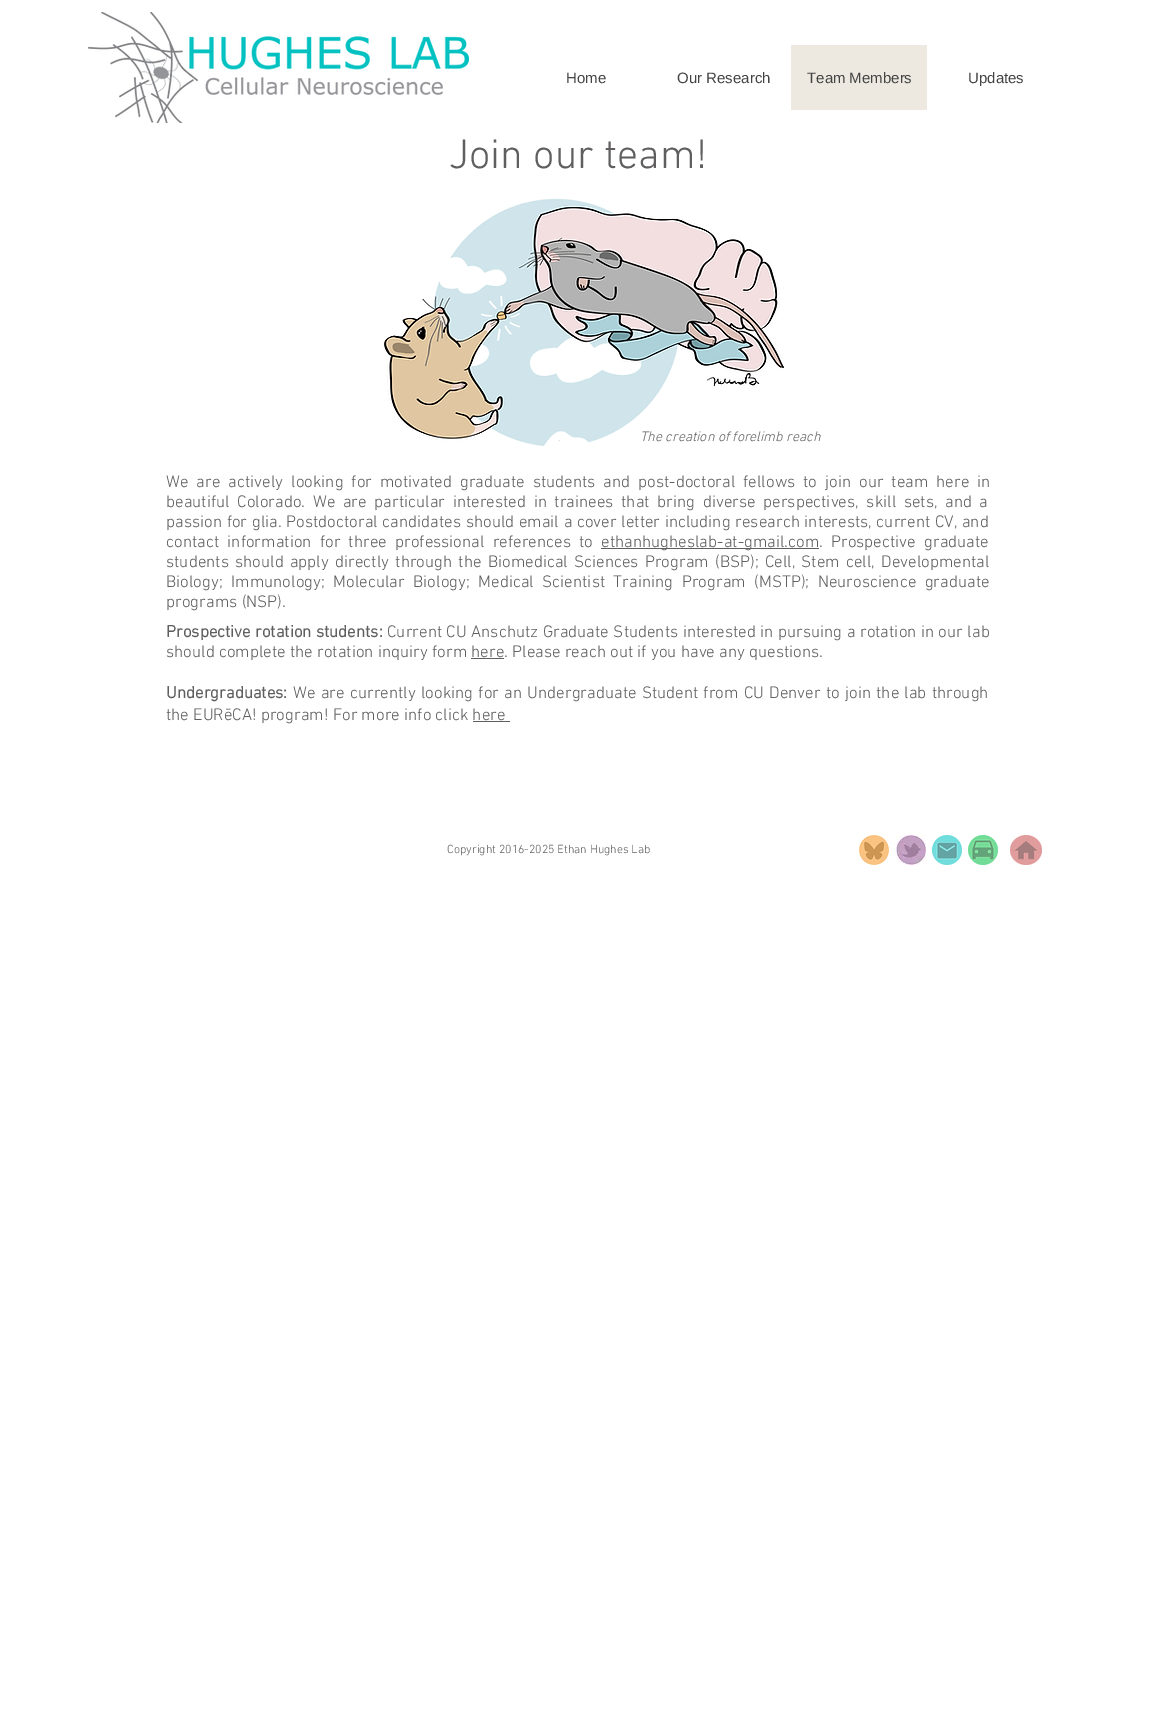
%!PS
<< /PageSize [1156 1719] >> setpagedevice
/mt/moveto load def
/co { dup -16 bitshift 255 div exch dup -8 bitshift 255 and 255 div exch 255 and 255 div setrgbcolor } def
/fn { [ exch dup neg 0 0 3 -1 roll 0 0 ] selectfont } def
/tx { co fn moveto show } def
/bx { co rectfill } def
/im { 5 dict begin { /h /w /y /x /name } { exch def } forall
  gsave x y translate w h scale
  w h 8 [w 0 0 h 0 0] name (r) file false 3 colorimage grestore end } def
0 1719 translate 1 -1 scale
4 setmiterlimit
0 0 1156 1719 16#FFFFFF bx
(media/1.raw) 88 12 381 111 im
791 45 136 65 16#EDE9E1 bx
(media/2.raw) 384 198 400 248 im
601 548 218 1 16#605E5E bx
471 658 33 1 16#605E5E bx
473 721 37 1 16#605E5E bx
(media/3.raw) 859 835 30 30 im
(media/4.raw) 896 835 30 30 im
(media/5.raw) 932 835 30 30 im
(media/6.raw) 968 835 30 30 im
(media/7.raw) 1010 835 32 30 im
(Home) 566 83 /LiberationSans-Regular 15 16#444444 tx
(Our Research) 677 83 /LiberationSans-Regular 15 16#444444 tx
(Team Members) 807 83 /LiberationSans-Regular 15 16#444444 tx
(Updates) 968 83 /LiberationSans-Regular 15 16#444444 tx
(Join our team!) 449 168 /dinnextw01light-Light 42 16#605E5E tx
(The creation of forelimb reach) 640 441 /dinnextw01light-LightItalic 14 16#605E5E tx
/dinnextw01light-Light 17 fn
166 487 mt 3.75 0 32 (We are actively looking for motivated graduate students and post-doctoral fellows to join our team here in) widthshow
166 507 mt 3.4 0 32 (beautiful Colorado. We are particular interested in trainees that bring diverse perspectives, skill sets, and a) widthshow
166 527 mt .4 0 32 (passion for glia. Postdoctoral candidates should email a cover letter including research interests, current CV, and) widthshow
166 547 mt 4 0 32 (contact information for three professional references to) widthshow
(ethanhugheslab-at-gmail.com) 601 547 /dinnextw01light-Light 17 16#605E5E tx
819 547 mt 4 0 32 (. Prospective graduate) widthshow
166 567 mt 2 0 32 (students should apply directly through the Biomedical Sciences Program \(BSP\); Cell, Stem cell, Developmental) widthshow
166 587 mt 4.25 0 32 (Biology; Immunology; Molecular Biology; Medical Scientist Training Program \(MSTP\); Neuroscience graduate) widthshow
(programs \(NSP\).) 166 607 /dinnextw01light-Light 17 16#605E5E tx
(Prospective rotation students:) 166 637 /dinnextw01light-Bold 17 16#605E5E tx
/dinnextw01light-Light 17 fn
387 637 mt .25 0 32 (Current CU Anschutz Graduate Students interested in pursuing a rotation in our lab) widthshow
(should complete the rotation inquiry form here. Please reach out if you have any questions.) 166 657 /dinnextw01light-Light 17 16#605E5E tx
(Undergraduates:) 166 698 /dinnextw01light-Bold 17 16#605E5E tx
/dinnextw01light-Light 17 fn
293 698 mt 1 0 32 (We are currently looking for an Undergraduate Student from CU Denver to join the lab through) widthshow
(the EURēCA! program! For more info click here) 166 720 /dinnextw01light-Light 17 16#605E5E tx
(Copyright 2016-2025 Ethan Hughes Lab) 447 853 /dinnextw01light-Light 12 16#605E5E tx
showpage
